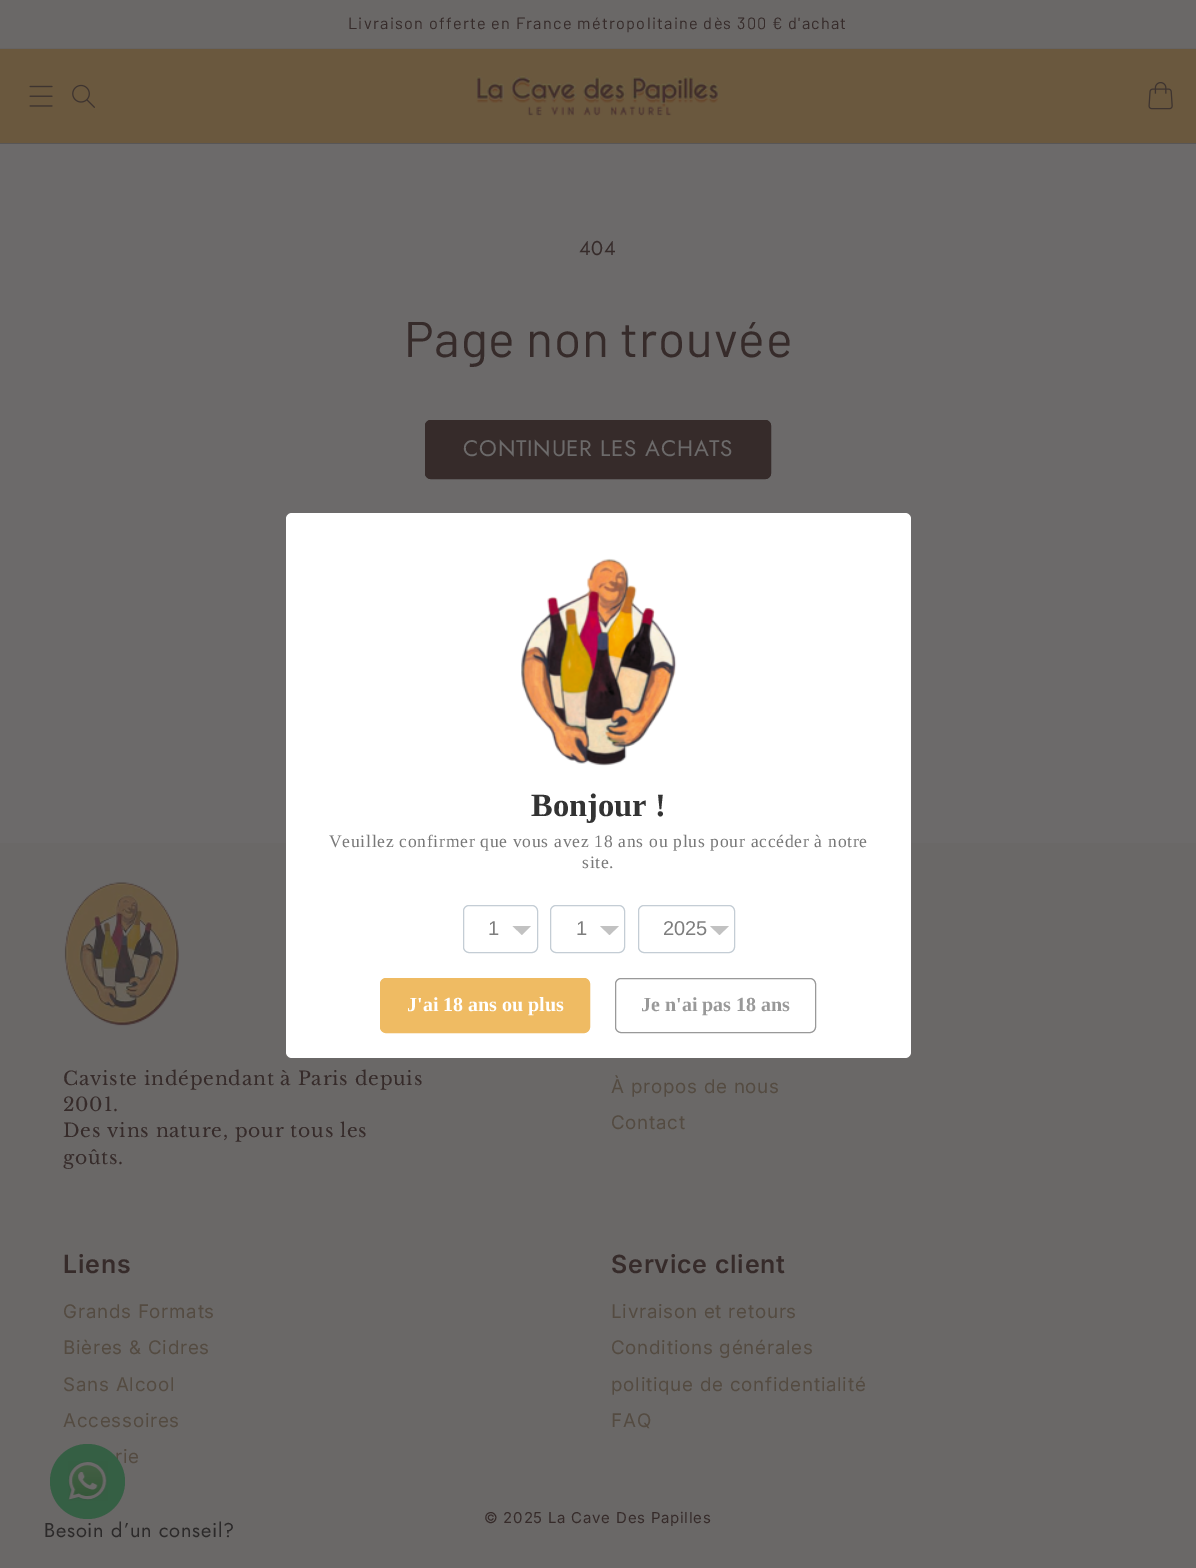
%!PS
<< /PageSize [1196 1568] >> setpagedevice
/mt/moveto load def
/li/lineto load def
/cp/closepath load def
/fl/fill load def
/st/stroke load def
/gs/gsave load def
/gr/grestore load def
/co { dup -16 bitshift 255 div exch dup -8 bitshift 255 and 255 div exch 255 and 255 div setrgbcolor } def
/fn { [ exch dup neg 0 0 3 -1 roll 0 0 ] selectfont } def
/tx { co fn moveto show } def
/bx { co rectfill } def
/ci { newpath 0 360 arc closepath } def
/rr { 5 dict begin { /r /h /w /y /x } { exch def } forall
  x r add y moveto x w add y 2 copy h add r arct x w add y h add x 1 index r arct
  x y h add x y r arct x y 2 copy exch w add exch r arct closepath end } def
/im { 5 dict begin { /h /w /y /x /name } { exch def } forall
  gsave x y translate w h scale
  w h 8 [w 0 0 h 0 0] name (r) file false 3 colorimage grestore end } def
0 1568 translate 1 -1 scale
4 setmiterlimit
0 0 1196 1568 16#6C6A6A bx
0 0 1196 48 16#6A6867 bx
0 48 1196 1 16#666362 bx
0 49 1196 94 16#6A583E bx
0 143 1196 1 16#585656 bx
(media/1.raw) 29 85 24 22 im
(media/2.raw) 72 84 23 24 im
(media/3.raw) 476 76 243 40 im
(media/4.raw) 1148 82 25 28 im
16#362B2A co
425 420 346 59 6 rr fl
425.5 420.5 345 58 5.5 rr st
0 843 1196 725 16#6A6867 bx
16#FFFFFF co
286 513 625 545 6 rr fl
(media/5.raw) 521 558 156 208 im
16#C2C2C2 co
512.5 926 mt 522 935 li 531 926 li cp fl
16#C4CDD5 co
463.5 905.5 74 47 5.5 rr st
16#C2C2C2 co
600 926 mt 609.5 935 li 619 926 li cp fl
16#C4CDD5 co
550.5 905.5 74 47 5.5 rr st
16#C2C2C2 co
710 926 mt 719.5 935 li 729 926 li cp fl
16#C4CDD5 co
638.5 905.5 96 47 5.5 rr st
16#EFBB63 co
380.5 978.5 209 54 5.5 rr gs fl gr
st
16#999999 co
615.5 978.5 200 54 5.5 rr st
(media/6.raw) 64 882 115 144 im
/Barlow-Regular 16.25 fn
16#362B2A co
348 29 mt 1.25 0 (Livraison offerte en France métropolitaine dès 300 € d'achat) ashow
/Jost-Regular 20 fn
579 255 mt .75 0 (404) ashow
/Barlow-Regular 50 fn
404 357 mt .75 0 (Page non trouvée) ashow
/Jost-Regular 22.5 fn
16#6C6A6A co
463 456 mt .75 0 (CONTINUER LES ACHATS) ashow
(Bonjour !) 531 816 /LiberationSerif-Bold 32.5 16#333333 tx
/LiberationSerif-Regular 17.5 fn
16#787878 co
329 847 mt .75 0 (Veuillez confirmer que vous avez 18 ans ou plus pour accéder à notre) ashow
582 868 mt .75 0 (site.) ashow
(1) 488 935 /LiberationSans-Regular 20 16#7E7E7E tx
(1) 576 935 /LiberationSans-Regular 20 16#7E7E7E tx
(2025) 663 935 /LiberationSans-Regular 20 16#7E7E7E tx
(J'ai 18 ans ou plus) 407 1011 /LiberationSerif-Bold 20 16#FFFFFF tx
(Je n'ai pas 18 ans) 641 1011 /LiberationSerif-Bold 20 16#999999 tx
/LibreBaskerville-Regular 18.75 fn
16#362B2A co
63 1085 mt .75 0 (Caviste indépendant à Paris depuis) ashow
63 1111 mt .75 0 (2001.) ashow
63 1137 mt .75 0 (Des vins nature, pour tous les) ashow
63 1164 mt .75 0 (goûts.) ashow
/Inter-Regular 18.75 fn
16#544B41 co
611 1093 mt .75 0 (À propos de nous) ashow
611 1129 mt .75 0 (Contact) ashow
/Inter-SemiBold 25 fn
16#362B2A co
63 1273 mt .75 0 (Liens) ashow
/Inter-Regular 18.75 fn
16#544B41 co
63 1318 mt .75 0 (Grands Formats) ashow
63 1354 mt .75 0 (Bières & Cidres) ashow
63 1391 mt .75 0 (Sans Alcool) ashow
63 1427 mt .75 0 (Accessoires) ashow
115 1463 mt .75 0 (rie) ashow
/Inter-SemiBold 25 fn
16#362B2A co
611 1273 mt .75 0 (Service client) ashow
/Inter-Regular 18.75 fn
16#544B41 co
611 1318 mt .75 0 (Livraison et retours) ashow
611 1354 mt .75 0 (Conditions générales) ashow
611 1391 mt .75 0 (politique de confidentialité) ashow
611 1427 mt .75 0 (FAQ) ashow
/Inter-Regular 15 fn
16#362B2A co
484 1523 mt .75 0 (© 2025 La Cave Des Papilles) ashow
16#355F44 co
87.5 1481.5 37.5 ci fl
(media/7.raw) 68 1461 40 40 im
/Jost-Regular 20 fn
16#2C2A2A co
44 1537 mt .75 0 (Besoin d’un conseil?) ashow
showpage
